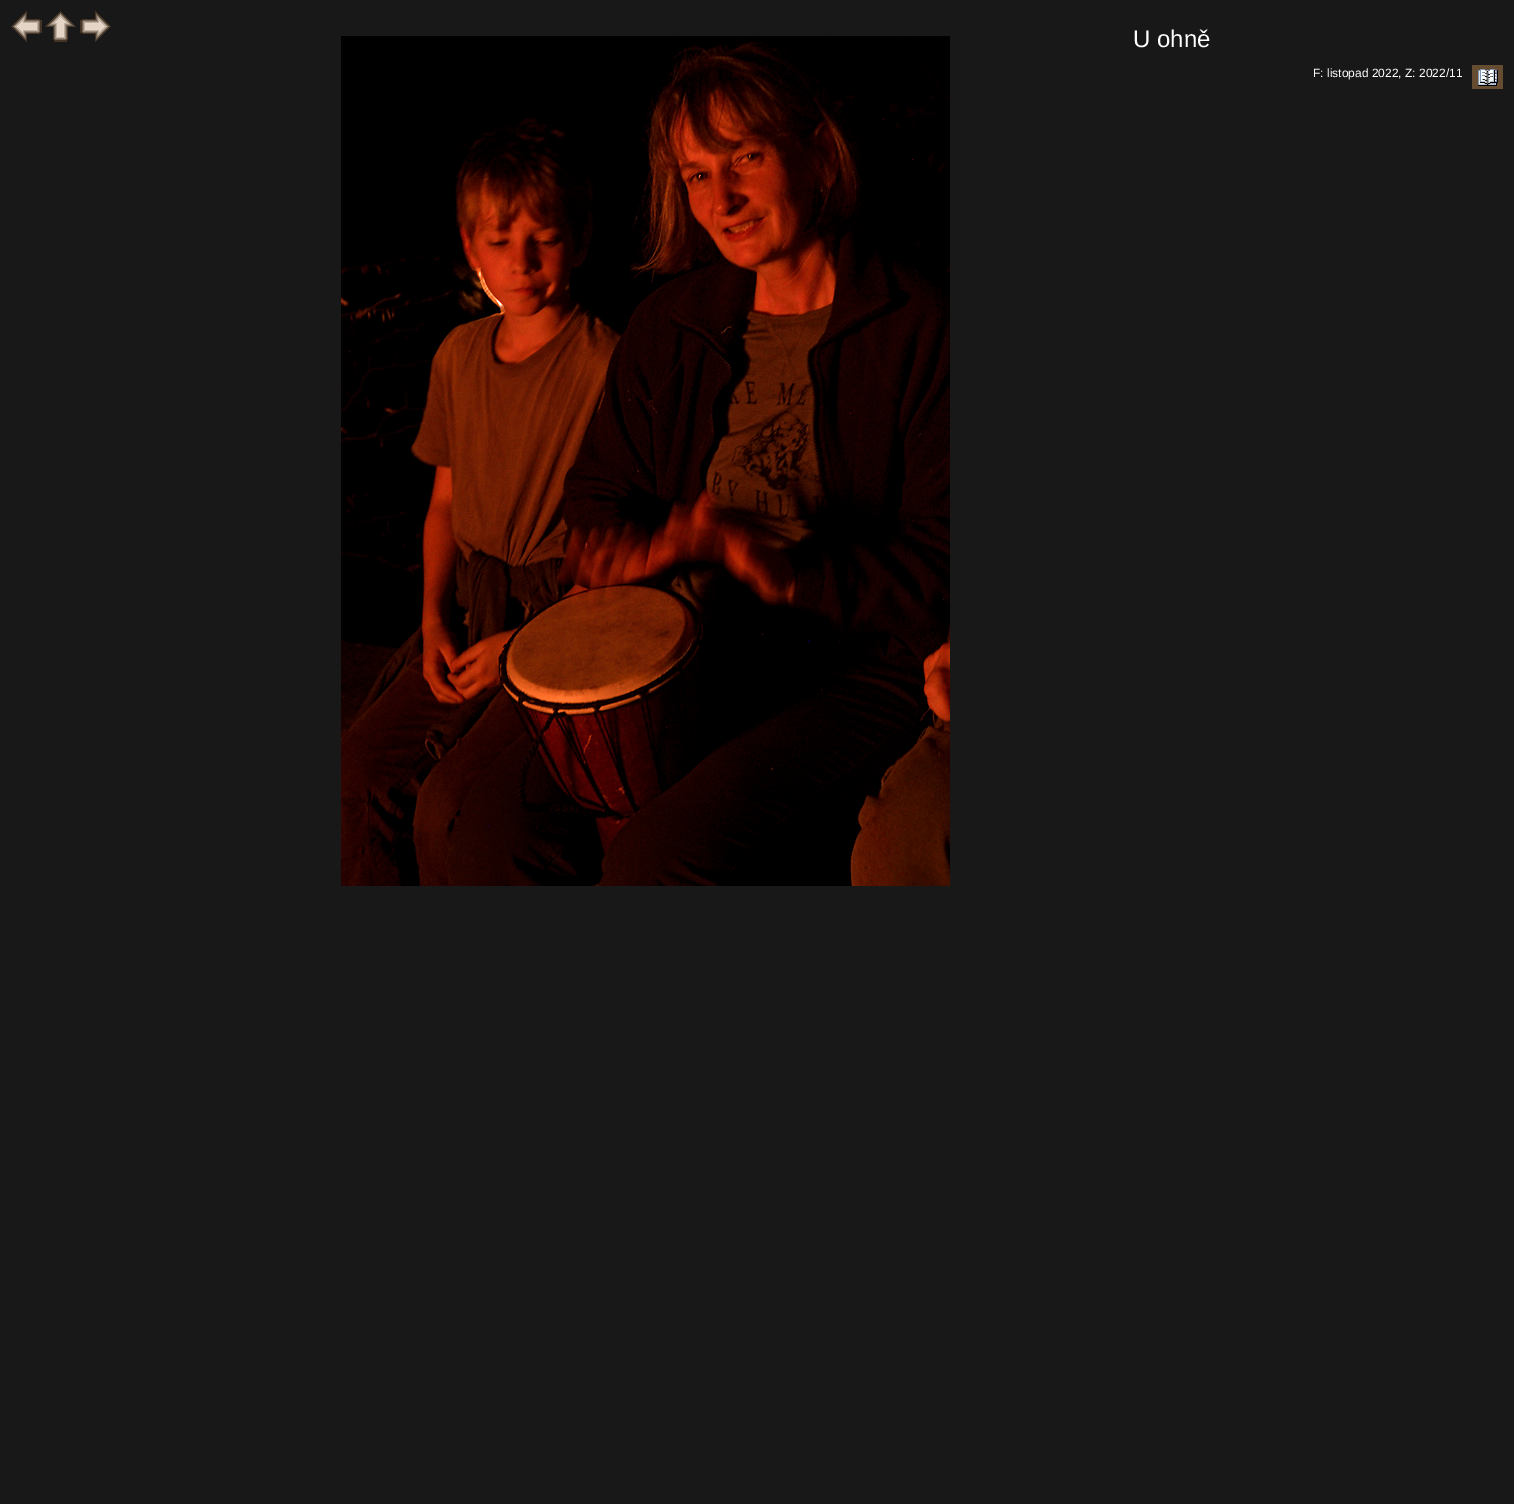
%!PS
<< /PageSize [1514 1504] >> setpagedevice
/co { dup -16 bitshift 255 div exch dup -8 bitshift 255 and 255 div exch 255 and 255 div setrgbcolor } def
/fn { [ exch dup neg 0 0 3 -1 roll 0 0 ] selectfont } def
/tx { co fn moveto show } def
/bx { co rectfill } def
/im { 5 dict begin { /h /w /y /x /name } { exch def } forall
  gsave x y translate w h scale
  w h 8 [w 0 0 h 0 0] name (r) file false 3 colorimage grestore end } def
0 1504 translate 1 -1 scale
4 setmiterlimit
0 0 1514 1504 16#181818 bx
(media/1.raw) 11 11 31 31 im
(media/2.raw) 45 11 31 31 im
(media/3.raw) 80 11 31 31 im
(media/4.raw) 341 36 609 850 im
(media/5.raw) 1472 65 31 24 im
(U ohně) 1133 47 /LiberationSans-Regular 24 16#FFFFFF tx
(F: listopad 2022, Z: 2022/11) 1313 77 /LiberationSans-Regular 12 16#FFFFFF tx
showpage
